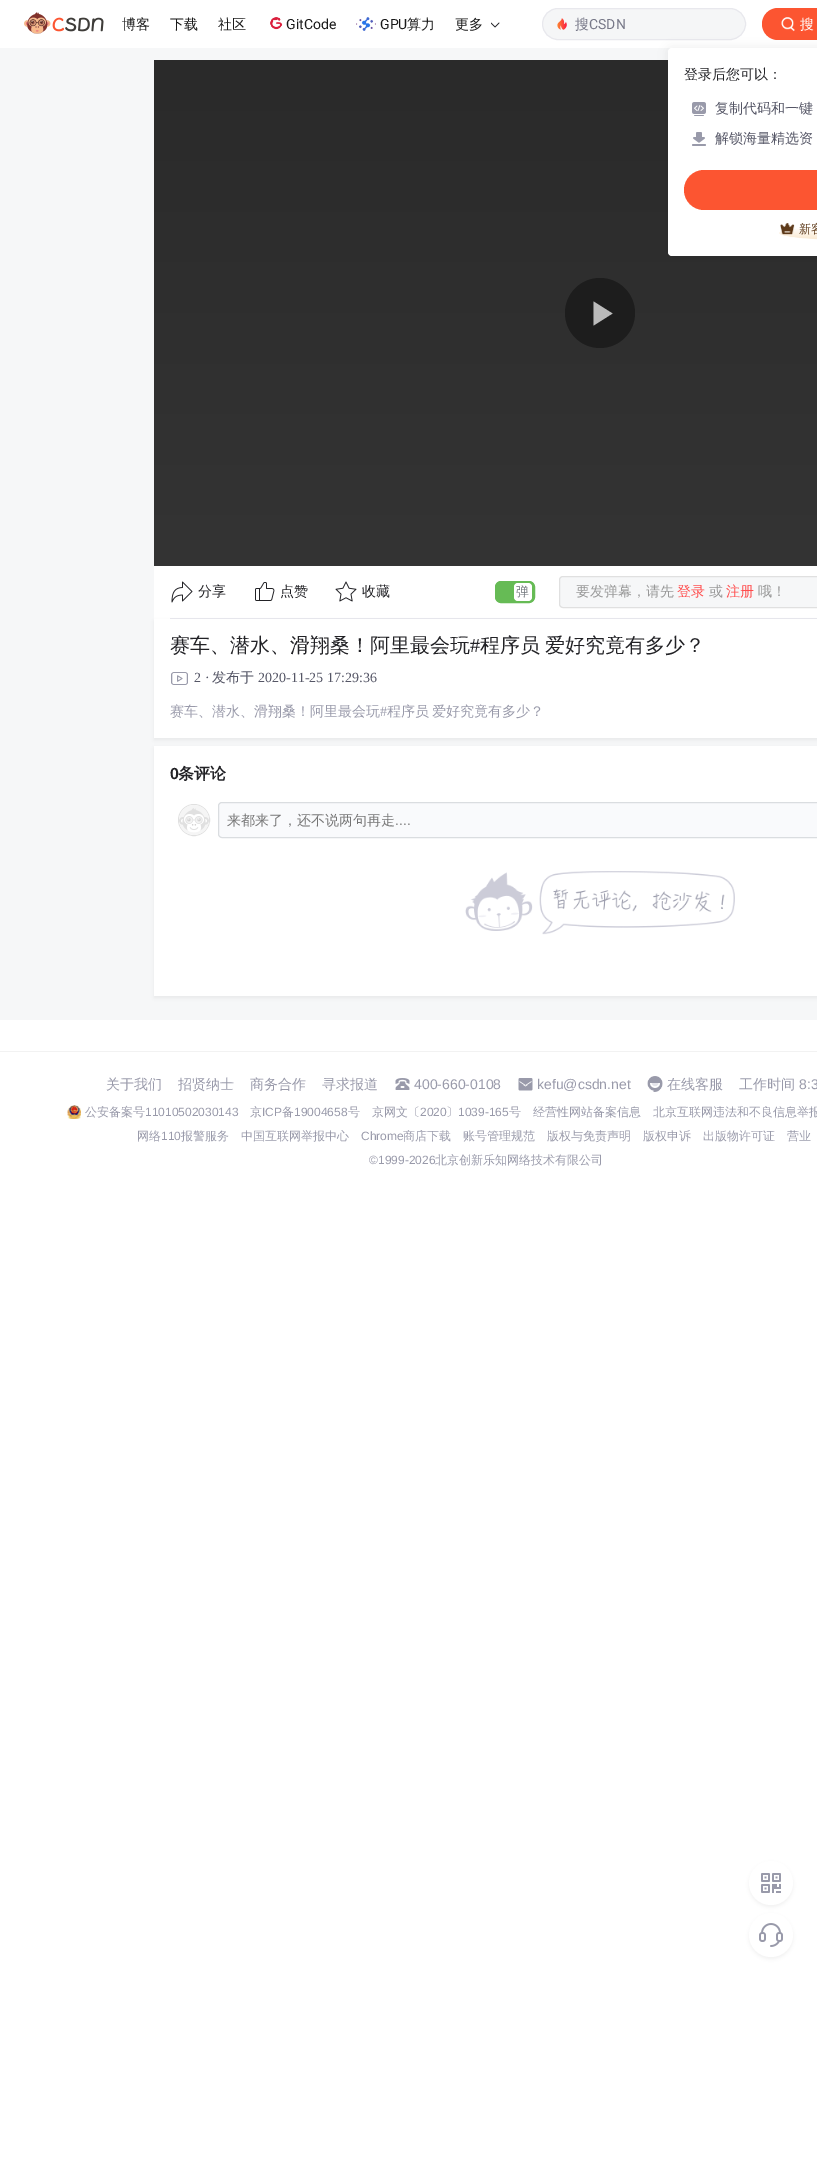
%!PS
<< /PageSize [817 2169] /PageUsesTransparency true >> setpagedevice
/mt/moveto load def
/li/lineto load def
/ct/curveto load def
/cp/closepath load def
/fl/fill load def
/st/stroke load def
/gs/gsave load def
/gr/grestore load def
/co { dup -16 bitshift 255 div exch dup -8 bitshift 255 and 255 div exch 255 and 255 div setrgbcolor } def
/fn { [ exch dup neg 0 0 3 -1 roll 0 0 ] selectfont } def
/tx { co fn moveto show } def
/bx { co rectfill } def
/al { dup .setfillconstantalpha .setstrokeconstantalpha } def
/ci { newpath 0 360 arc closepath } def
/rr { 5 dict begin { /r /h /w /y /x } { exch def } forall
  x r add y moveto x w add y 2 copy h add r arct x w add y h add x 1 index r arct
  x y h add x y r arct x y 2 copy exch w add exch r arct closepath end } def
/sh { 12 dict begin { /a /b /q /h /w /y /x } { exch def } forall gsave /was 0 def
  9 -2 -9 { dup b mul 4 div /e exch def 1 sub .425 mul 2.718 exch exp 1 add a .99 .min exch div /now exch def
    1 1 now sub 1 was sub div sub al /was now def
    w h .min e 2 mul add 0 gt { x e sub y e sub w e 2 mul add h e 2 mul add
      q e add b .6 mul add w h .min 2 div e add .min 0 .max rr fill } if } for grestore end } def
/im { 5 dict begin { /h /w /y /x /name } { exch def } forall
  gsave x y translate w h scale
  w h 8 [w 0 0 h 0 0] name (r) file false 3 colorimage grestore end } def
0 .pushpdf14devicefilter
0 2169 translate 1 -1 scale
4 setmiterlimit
0 0 817 2169 16#FFFFFF bx
(media/1.raw) 24 12 80 22 im
(media/2.raw) 270 17 13 13 im
(media/3.raw) 356 17 20 14 im
(media/4.raw) 491 22 9 6 im
16#F5F6F7 co
542.5 8.5 203 31 15.5 rr gs fl gr
16#E8E8ED co
st
(media/5.raw) 557 18 10 12 im
16#FC5531 co
762 8 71 32 16 rr fl
(media/6.raw) 781 17 14 15 im
0 48 817 972 16#F6F7F8 bx
gs 154 60 mt 817 60 li 817 566 li 154 566 li cp clip newpath
<< /ShadingType 2 /ColorSpace /DeviceRGB /Coords [601 60 601 566] /Extend [true true] /Function << /FunctionType 2 /Domain [0 1] /C0 [.165 .165 .165] /C1 [.204 .204 .204] /N 1 >> >> shfill gr
16#000000 co
666 46 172 212 6 5 .06 sh
16#FFFFFF co
668 48 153 208 4 rr fl
(media/7.raw) 692 102 14 14 im
(media/8.raw) 692 132 14 14 im
16#FC5531 co
684 170 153 40 20 rr fl
(media/9.raw) 779 227 38 13 im
(media/10.raw) 780 223 15 12 im
16#1D1D1D co
600 313 35 ci fl
16#BBBBBB co
603 307.5 mt 612.5 313.5 li 603 319.5 li cp 593.5 301.5 mt 603 307.5 li 603 319.5 li 593.5 325.5 li cp fl
154 566 663 52 16#FFFFFF bx
(media/11.raw) 171 581 22 22 im
(media/12.raw) 255 582 20 19 im
(media/13.raw) 335 581 22 21 im
16#66BB55 co
495.5 581.5 39 21 5.5 rr gs fl gr
st
16#FFFFFF co
514 583 18 18 4 rr fl
16#F6F7F8 co
563 576.5 mt 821.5 576.5 li 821.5 607.5 li 563 607.5 li 561 607.5 559.5 606 559.5 604 ct 559.5 580 li 559.5 578 561 576.5 563 576.5 ct cp gs fl gr
16#E0E0E0 co
st
154 618 16 1 16#FFFFFF bx
170 618 647 1 16#E8E8EE bx
16#000000 co
154 621 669 119 0 2 .05 sh
154 619 663 119 16#FFFFFF bx
(media/14.raw) 171 672 17 13 im
16#000000 co
154 748 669 250 0 2 .05 sh
154 746 663 250 16#FFFFFF bx
16#E0E0E0 co
194 820 15.5 ci st
(media/15.raw) 179 805 30 30 im
16#F9FAFC co
218.5 802.5 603 35 3.5 rr gs fl gr
16#DADDE0 co
st
(media/16.raw) 465 871 270 64 im
0 1051 817 1 16#F2F2F2 bx
(media/17.raw) 395 1078 15 12 im
(media/18.raw) 518 1078 15 13 im
(media/19.raw) 647 1076 16 16 im
(media/20.raw) 67 1105 14 14 im
16#000000 co
749 1863 44 44 22 2 .05 sh
16#FFFFFF co
771 1883 22 ci fl
(media/21.raw) 761 1873 20 20 im
16#000000 co
749 1915 44 44 22 2 .05 sh
16#FFFFFF co
771 1935 22 ci fl
(media/22.raw) 759 1923 24 24 im
(博客) 122 29 /WenQuanYiZenHei-Medium 14 16#1A1A1A tx
(下载) 170 29 /WenQuanYiZenHei-Medium 14 16#1A1A1A tx
(社区) 218 29 /WenQuanYiZenHei-Medium 14 16#1A1A1A tx
(GitCode) 286 29 /Roboto-Regular 14 16#1A1A1A tx
(GPU) 380 29 /Roboto-Regular 14 16#1A1A1A tx
(算力) 407 29 /WenQuanYiZenHei-Medium 14 16#1A1A1A tx
(更多) 455 29 /WenQuanYiZenHei-Medium 14 16#1A1A1A tx
(搜) 575 29 /WenQuanYiZenHei-Medium 14 16#777888 tx
(CSDN) 589 29 /Roboto-Regular 14 16#777888 tx
(搜) 800 29 /WenQuanYiZenHei-Medium 14 16#FFFFFF tx
(登录后您可以：) 684 79 /WenQuanYiZenHei-Medium 14 16#222226 tx
(复制代码和一键) 715 113 /WenQuanYiZenHei-Medium 14 16#555666 tx
(解锁海量精选资) 715 143 /WenQuanYiZenHei-Medium 14 16#555666 tx
(新客) 799 233 /WenQuanYiZenHei-Medium 12 16#5E3A1A tx
(分享) 198 596 /WenQuanYiZenHei-Medium 14 16#222226 tx
(点赞) 280 596 /WenQuanYiZenHei-Medium 14 16#222226 tx
(收藏) 362 596 /WenQuanYiZenHei-Medium 14 16#222226 tx
(弹) 516 596 /WenQuanYiZenHei-Medium 13 16#6D7278 tx
(要发弹幕，请先) 576 596 /WenQuanYiZenHei-Medium 14 16#999999 tx
(登录) 677 596 /WenQuanYiZenHei-Medium 14 16#FF4D4D tx
(或) 709 596 /WenQuanYiZenHei-Medium 14 16#999999 tx
(注册) 726 596 /WenQuanYiZenHei-Medium 14 16#FF4D4D tx
(哦！) 758 596 /WenQuanYiZenHei-Medium 14 16#999999 tx
(赛车、潜水、滑翔桑！阿里最会玩) 170 652 /WenQuanYiZenHei-Medium 20 16#222226 tx
(#) 470 652 /LiberationSerif-Regular 20 16#222226 tx
/WenQuanYiZenHei-Medium 20 fn
480 652 mt -1 0 32 (程序员 爱好究竟有多少？) widthshow
(2 ·) 194 682 /LiberationSerif-Regular 14 16#555666 tx
(发布于) 212 682 /WenQuanYiZenHei-Medium 14 16#555666 tx
(2020-11-25 17:29:36) 258 682 /LiberationSerif-Regular 14 16#555666 tx
(赛车、潜水、滑翔桑！阿里最会玩) 170 716 /WenQuanYiZenHei-Medium 14 16#999AAA tx
(#) 380 716 /LiberationSerif-Regular 14 16#999AAA tx
/WenQuanYiZenHei-Medium 14 fn
387 716 mt -1 0 32 (程序员 爱好究竟有多少？) widthshow
(0) 170 779 /LiberationSans-Bold 16 16#222226 tx
(条评论) 178 779 /WenQuanYiZenHei-Bold 16 16#222226 tx
(来都来了，还不说两句再走) 227 825 /WenQuanYiZenHei-Medium 14 16#757575 tx
(....) 395 825 /LiberationSans-Regular 14 16#757575 tx
(关于我们) 106 1089 /WenQuanYiZenHei-Medium 14 16#999AAA tx
(招贤纳士) 178 1089 /WenQuanYiZenHei-Medium 14 16#999AAA tx
(商务合作) 250 1089 /WenQuanYiZenHei-Medium 14 16#999AAA tx
(寻求报道) 322 1089 /WenQuanYiZenHei-Medium 14 16#999AAA tx
(400-660-0108) 414 1089 /LiberationSans-Regular 14 16#999AAA tx
(kefu@csdn.net) 537 1089 /LiberationSans-Regular 14 16#999AAA tx
(在线客服) 667 1089 /WenQuanYiZenHei-Medium 14 16#999AAA tx
(工作时间) 739 1089 /WenQuanYiZenHei-Medium 14 16#999AAA tx
(8:3) 799 1089 /LiberationSans-Regular 14 16#999AAA tx
(公安备案号) 85 1116 /WenQuanYiZenHei-Medium 12 16#999AAA tx
(11010502030143) 145 1116 /LiberationSans-Regular 12 16#999AAA tx
(京) 250 1116 /WenQuanYiZenHei-Medium 12 16#999AAA tx
(ICP) 262 1116 /LiberationSans-Regular 12 16#999AAA tx
(备) 282 1116 /WenQuanYiZenHei-Medium 12 16#999AAA tx
(19004658) 294 1116 /LiberationSans-Regular 12 16#999AAA tx
(号) 348 1116 /WenQuanYiZenHei-Medium 12 16#999AAA tx
(京网文〔) 372 1116 /WenQuanYiZenHei-Medium 12 16#999AAA tx
(2020) 420 1116 /LiberationSans-Regular 12 16#999AAA tx
(〕) 446 1116 /WenQuanYiZenHei-Medium 12 16#999AAA tx
(1039-165) 458 1116 /LiberationSans-Regular 12 16#999AAA tx
(号) 509 1116 /WenQuanYiZenHei-Medium 12 16#999AAA tx
(经营性网站备案信息) 533 1116 /WenQuanYiZenHei-Medium 12 16#999AAA tx
(北京互联网违法和不良信息举报) 653 1116 /WenQuanYiZenHei-Medium 12 16#999AAA tx
(网络) 137 1140 /WenQuanYiZenHei-Medium 12 16#999AAA tx
(110) 161 1140 /LiberationSans-Regular 12 16#999AAA tx
(报警服务) 181 1140 /WenQuanYiZenHei-Medium 12 16#999AAA tx
(中国互联网举报中心) 241 1140 /WenQuanYiZenHei-Medium 12 16#999AAA tx
(Chrome) 361 1140 /LiberationSans-Regular 12 16#999AAA tx
(商店下载) 403 1140 /WenQuanYiZenHei-Medium 12 16#999AAA tx
(账号管理规范) 463 1140 /WenQuanYiZenHei-Medium 12 16#999AAA tx
(版权与免责声明) 547 1140 /WenQuanYiZenHei-Medium 12 16#999AAA tx
(版权申诉) 643 1140 /WenQuanYiZenHei-Medium 12 16#999AAA tx
(出版物许可证) 703 1140 /WenQuanYiZenHei-Medium 12 16#999AAA tx
(营业) 787 1140 /WenQuanYiZenHei-Medium 12 16#999AAA tx
(©1999-2026) 369 1164 /LiberationSans-Regular 12 16#999AAA tx
(北京创新乐知网络技术有限公司) 435 1164 /WenQuanYiZenHei-Medium 12 16#999AAA tx
.poppdf14devicefilter showpage
